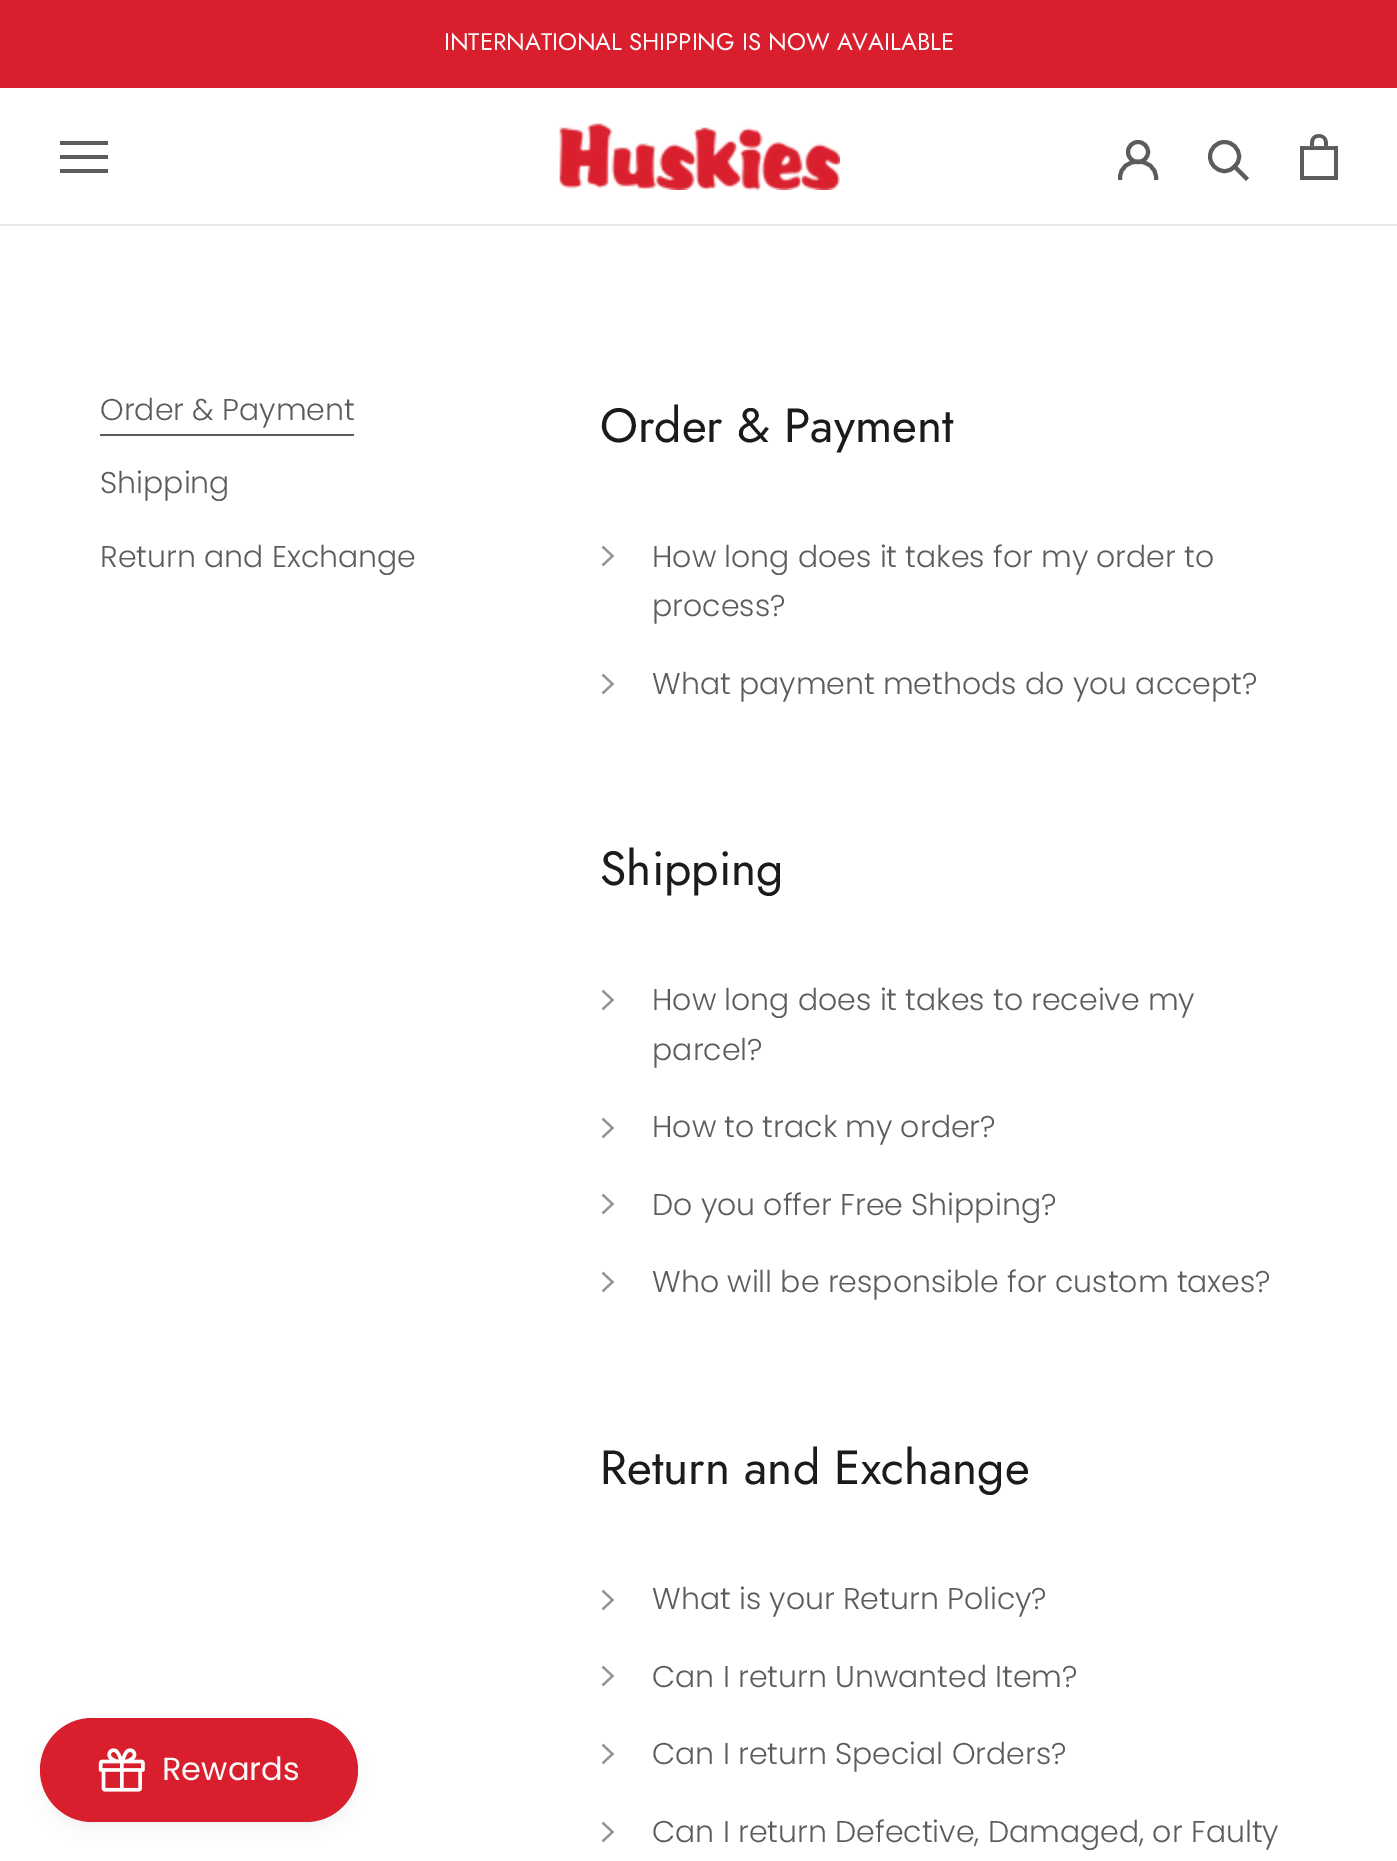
%!PS
<< /PageSize [1397 1861] /PageUsesTransparency true >> setpagedevice
/mt/moveto load def
/li/lineto load def
/ct/curveto load def
/cp/closepath load def
/fl/fill load def
/st/stroke load def
/lw/setlinewidth load def
/co { dup -16 bitshift 255 div exch dup -8 bitshift 255 and 255 div exch 255 and 255 div setrgbcolor } def
/fn { [ exch dup neg 0 0 3 -1 roll 0 0 ] selectfont } def
/tx { co fn moveto show } def
/bx { co rectfill } def
/al { dup .setfillconstantalpha .setstrokeconstantalpha } def
/ci { newpath 0 360 arc closepath } def
/rr { 5 dict begin { /r /h /w /y /x } { exch def } forall
  x r add y moveto x w add y 2 copy h add r arct x w add y h add x 1 index r arct
  x y h add x y r arct x y 2 copy exch w add exch r arct closepath end } def
/sh { 12 dict begin { /a /b /q /h /w /y /x } { exch def } forall gsave /was 0 def
  9 -2 -9 { dup b mul 4 div /e exch def 1 sub .425 mul 2.718 exch exp 1 add a .99 .min exch div /now exch def
    1 1 now sub 1 was sub div sub al /was now def
    w h .min e 2 mul add 0 gt { x e sub y e sub w e 2 mul add h e 2 mul add
      q e add b .6 mul add w h .min 2 div e add .min 0 .max rr fill } if } for grestore end } def
/im { 5 dict begin { /h /w /y /x /name } { exch def } forall
  gsave x y translate w h scale
  w h 8 [w 0 0 h 0 0] name (r) file false 3 colorimage grestore end } def
0 .pushpdf14devicefilter
0 1861 translate 1 -1 scale
4 setmiterlimit
0 0 1397 1861 16#FFFFFF bx
0 0 1397 88 16#D91F2D bx
0 224 1397 2 16#E7E7E7 bx
16#5C5C5C co
60 173 mt 60 169 li 108 169 li 108 173 li cp 60 155 mt 108 155 li 108 159 li 60 159 li cp 60 141 mt 108 141 li 108 145 li 60 145 li cp fl
(media/1.raw) 559 123 281 67 im
4 lw
2 setlinecap
1120 178 mt 1120 156 1156 156 1156 178 ct st
0 setlinecap
1138 152 10 ci st
2 setlinecap
1246 178 mt 1234.5 166.5 li st
0 setlinecap
1224.5 156.5 14.5 ci st
(media/2.raw) 1300 134 38 46 im
100 434 254 2 16#5C5C5C bx
16#939393 co
2.2 lw
2 setlinecap
603.5 547.5 mt 612.5 556 li 603.5 564.5 li st
603.5 675.5 mt 612.5 684 li 603.5 692.5 li st
603.5 991.5 mt 612.5 1000 li 603.5 1008.5 li st
603.5 1119.5 mt 612.5 1128 li 603.5 1136.5 li st
603.5 1195.5 mt 612.5 1204 li 603.5 1212.5 li st
603.5 1273.5 mt 612.5 1282 li 603.5 1290.5 li st
603.5 1591.5 mt 612.5 1600 li 603.5 1608.5 li st
603.5 1667.5 mt 612.5 1676 li 603.5 1684.5 li st
603.5 1745.5 mt 612.5 1754 li 603.5 1762.5 li st
603.5 1823.5 mt 612.5 1832 li 603.5 1840.5 li st
16#444444 co
44 1730 310 96 48 8 .08 sh
16#D91F2D co
40 1718 318 104 52 rr fl
(media/3.raw) 98 1748 47 44 im
(INTERNATIONAL SHIPPING IS NOW AVAILABLE) 444 50 /Jost-Regular 24 16#FAFAFA tx
(Order & Payment) 100 420 /Poppins-Light 30 16#5C5C5C tx
(Shipping) 100 493 /Poppins-Light 30 16#5C5C5C tx
(Return and Exchange) 100 567 /Poppins-Light 30 16#5C5C5C tx
(Order & Payment) 600 442 /Jost-Regular 48 16#1C1B1B tx
(How long does it takes for my order to) 652 567 /Poppins-Light 30 16#5C5C5C tx
(process?) 652 616 /Poppins-Light 30 16#5C5C5C tx
(What payment methods do you accept?) 652 694 /Poppins-Light 30 16#5C5C5C tx
(Shipping) 600 885 /Jost-Regular 48 16#1C1B1B tx
(How long does it takes to receive my) 652 1010 /Poppins-Light 30 16#5C5C5C tx
(parcel?) 652 1060 /Poppins-Light 30 16#5C5C5C tx
(How to track my order?) 652 1137 /Poppins-Light 30 16#5C5C5C tx
(Do you offer Free Shipping?) 652 1215 /Poppins-Light 30 16#5C5C5C tx
(Who will be responsible for custom taxes?) 652 1292 /Poppins-Light 30 16#5C5C5C tx
(Return and Exchange) 600 1484 /Jost-Regular 48 16#1C1B1B tx
(What is your Return Policy?) 652 1609 /Poppins-Light 30 16#5C5C5C tx
(Can I return Unwanted Item?) 652 1687 /Poppins-Light 30 16#5C5C5C tx
(Can I return Special Orders?) 652 1764 /Poppins-Light 30 16#5C5C5C tx
(Can I return Defective, Damaged, or Faulty) 652 1842 /Poppins-Light 30 16#5C5C5C tx
(Rewards) 162 1780 /Poppins-Regular 32 16#FAFAFA tx
.poppdf14devicefilter showpage
